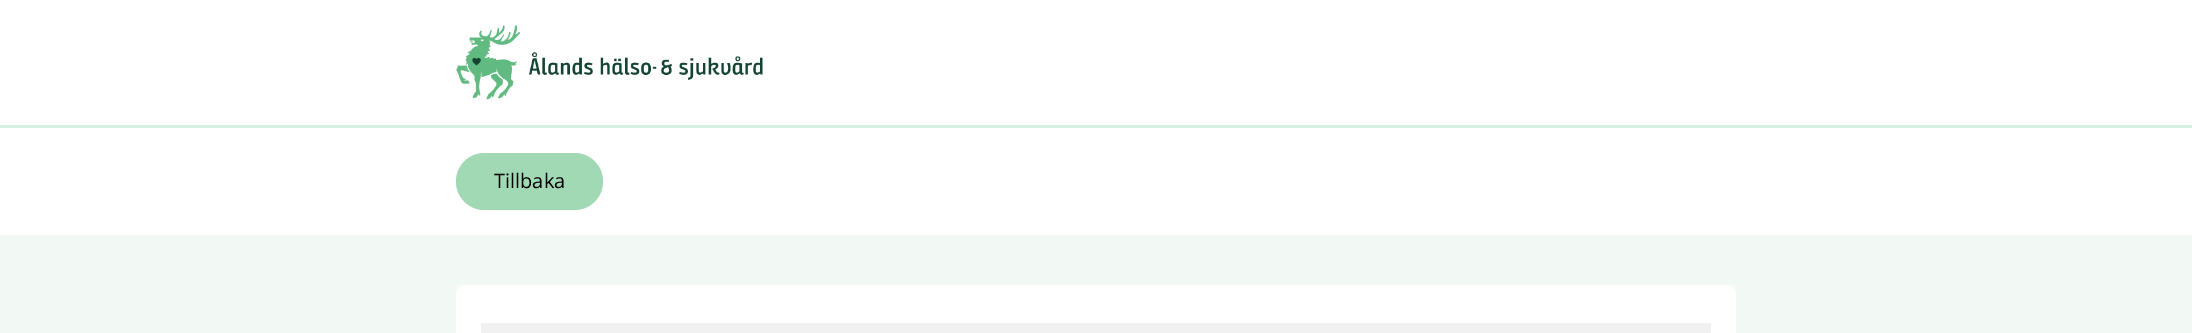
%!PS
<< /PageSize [2192 333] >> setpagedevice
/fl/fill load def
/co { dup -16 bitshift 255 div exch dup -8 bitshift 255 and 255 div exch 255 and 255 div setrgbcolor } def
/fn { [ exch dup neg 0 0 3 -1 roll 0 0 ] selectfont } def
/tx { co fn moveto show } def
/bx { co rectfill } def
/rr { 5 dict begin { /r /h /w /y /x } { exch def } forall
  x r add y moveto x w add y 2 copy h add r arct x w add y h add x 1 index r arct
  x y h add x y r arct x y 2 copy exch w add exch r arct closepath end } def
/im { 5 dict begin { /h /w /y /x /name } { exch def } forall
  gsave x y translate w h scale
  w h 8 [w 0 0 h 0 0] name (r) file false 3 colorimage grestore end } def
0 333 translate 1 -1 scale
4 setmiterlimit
0 0 2192 333 16#FFFFFF bx
0 125 2192 3 16#D3F0E3 bx
(media/1.raw) 456 25 307 75 im
16#A2D9B5 co
456 153 147 57 28.5 rr fl
0 235 2192 98 16#F2F8F3 bx
16#FFFFFF co
456 285 1280 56 8 rr fl
481 323 1230 10 16#F1F1F1 bx
(Tillbaka) 494 188 /OpenSans-Regular 20 16#000000 tx
showpage
